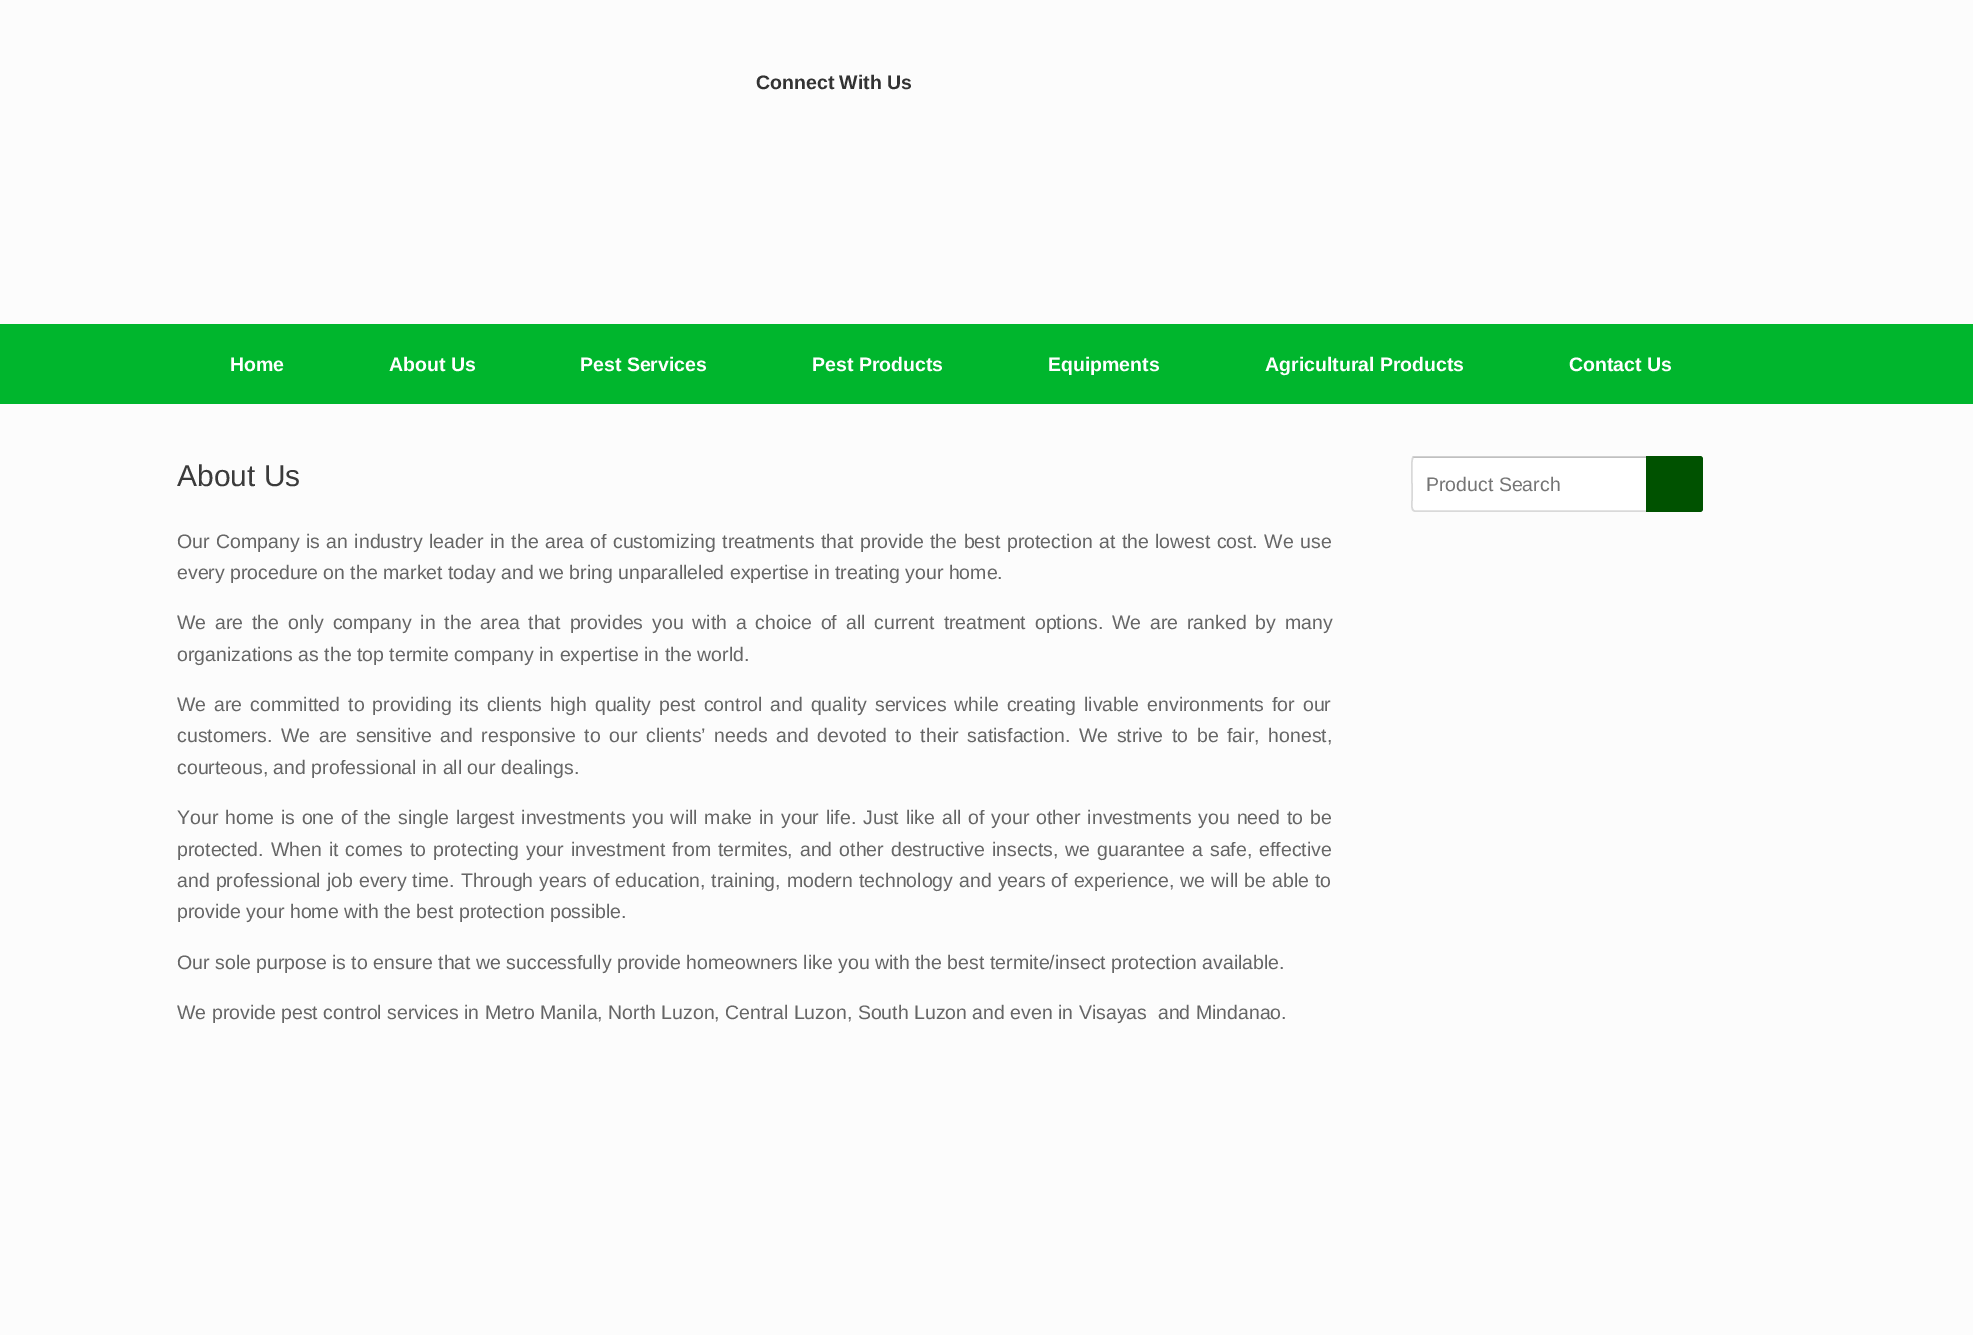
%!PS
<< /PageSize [1973 1335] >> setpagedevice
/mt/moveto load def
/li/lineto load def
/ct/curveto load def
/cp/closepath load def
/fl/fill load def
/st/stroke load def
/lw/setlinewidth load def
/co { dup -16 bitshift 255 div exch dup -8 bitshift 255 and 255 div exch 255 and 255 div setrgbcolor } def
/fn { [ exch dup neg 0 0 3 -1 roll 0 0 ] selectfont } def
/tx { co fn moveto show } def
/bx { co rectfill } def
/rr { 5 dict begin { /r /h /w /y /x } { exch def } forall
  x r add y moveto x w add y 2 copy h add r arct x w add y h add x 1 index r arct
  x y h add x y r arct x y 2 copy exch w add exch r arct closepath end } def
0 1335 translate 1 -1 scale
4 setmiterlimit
0 0 1973 1335 16#FCFCFC bx
0 324 1973 80 16#00B62D bx
16#FFFFFF co
1412 456 291 56 3 rr fl
16#C0C0C0 co
1.5 lw
1413 457.5 mt 1413.5 457 li 1652 457 li 1699.5 457 li 1701 457.5 li st
16#D9D9D9 co
1701 457.5 mt 1703 459 1702 480 1702 484 ct 1702 500 li 1702 504.5 1703 510.5 1699.5 511 ct 1414.5 511 li 1411 510.5 1412 504.5 1412 500 ct 1412 484 li 1412 480 1411 459 1413 457.5 ct st
16#005200 co
1646 456 mt 1700 456 li 1701.5 456 1703 457.5 1703 459 ct 1703 509 li 1703 510.5 1701.5 512 1700 512 ct 1646 512 li cp fl
(Connect With Us) 756 89 /LiberationSans-Bold 19.5 16#333333 tx
(Home) 230 371 /LiberationSans-Bold 19.5 16#FFFFFF tx
(About Us) 389 371 /LiberationSans-Bold 19.5 16#FFFFFF tx
(Pest Services) 580 371 /LiberationSans-Bold 19.5 16#FFFFFF tx
(Pest Products) 812 371 /LiberationSans-Bold 19.5 16#FFFFFF tx
(Equipments) 1048 371 /LiberationSans-Bold 19.5 16#FFFFFF tx
(Agricultural Products) 1265 371 /LiberationSans-Bold 19.5 16#FFFFFF tx
(Contact Us) 1569 371 /LiberationSans-Bold 19.5 16#FFFFFF tx
(About Us) 177 486 /LiberationSans-Regular 30 16#3B3B3B tx
/LiberationSans-Regular 19.5 fn
16#666666 co
177 548 mt 1 0 32 (Our Company is an industry leader in the area of customizing treatments that provide the best protection at the lowest cost. We use) widthshow
(every procedure on the market today and we bring unparalleled expertise in treating your home.) 177 579 /LiberationSans-Regular 19.5 16#666666 tx
177 629 mt 3.4 0 32 (We are the only company in the area that provides you with a choice of all current treatment options. We are ranked by many) widthshow
(organizations as the top termite company in expertise in the world.) 177 661 /LiberationSans-Regular 19.5 16#666666 tx
177 711 mt 2.5 0 32 (We are committed to providing its clients high quality pest control and quality services while creating livable environments for our) widthshow
177 742 mt 3.25 0 32 (customers. We are sensitive and responsive to our clients’ needs and devoted to their satisfaction. We strive to be fair, honest,) widthshow
(courteous, and professional in all our dealings.) 177 774 /LiberationSans-Regular 19.5 16#666666 tx
177 824 mt 1.45 0 32 (Your home is one of the single largest investments you will make in your life. Just like all of your other investments you need to be) widthshow
177 856 mt 1.6 0 32 (protected. When it comes to protecting your investment from termites, and other destructive insects, we guarantee a safe, effective) widthshow
177 887 mt .6 0 32 (and professional job every time. Through years of education, training, modern technology and years of experience, we will be able to) widthshow
(provide your home with the best protection possible.) 177 918 /LiberationSans-Regular 19.5 16#666666 tx
(Our sole purpose is to ensure that we successfully provide homeowners like you with the best termite/insect protection available.) 177 969 /LiberationSans-Regular 19.5 16#666666 tx
(We provide pest control services in Metro Manila, North Luzon, Central Luzon, South Luzon and even in Visayas  and Mindanao.) 177 1019 /LiberationSans-Regular 19.5 16#666666 tx
(Product Search) 1426 491 /LiberationSans-Regular 19.5 16#757575 tx
showpage
